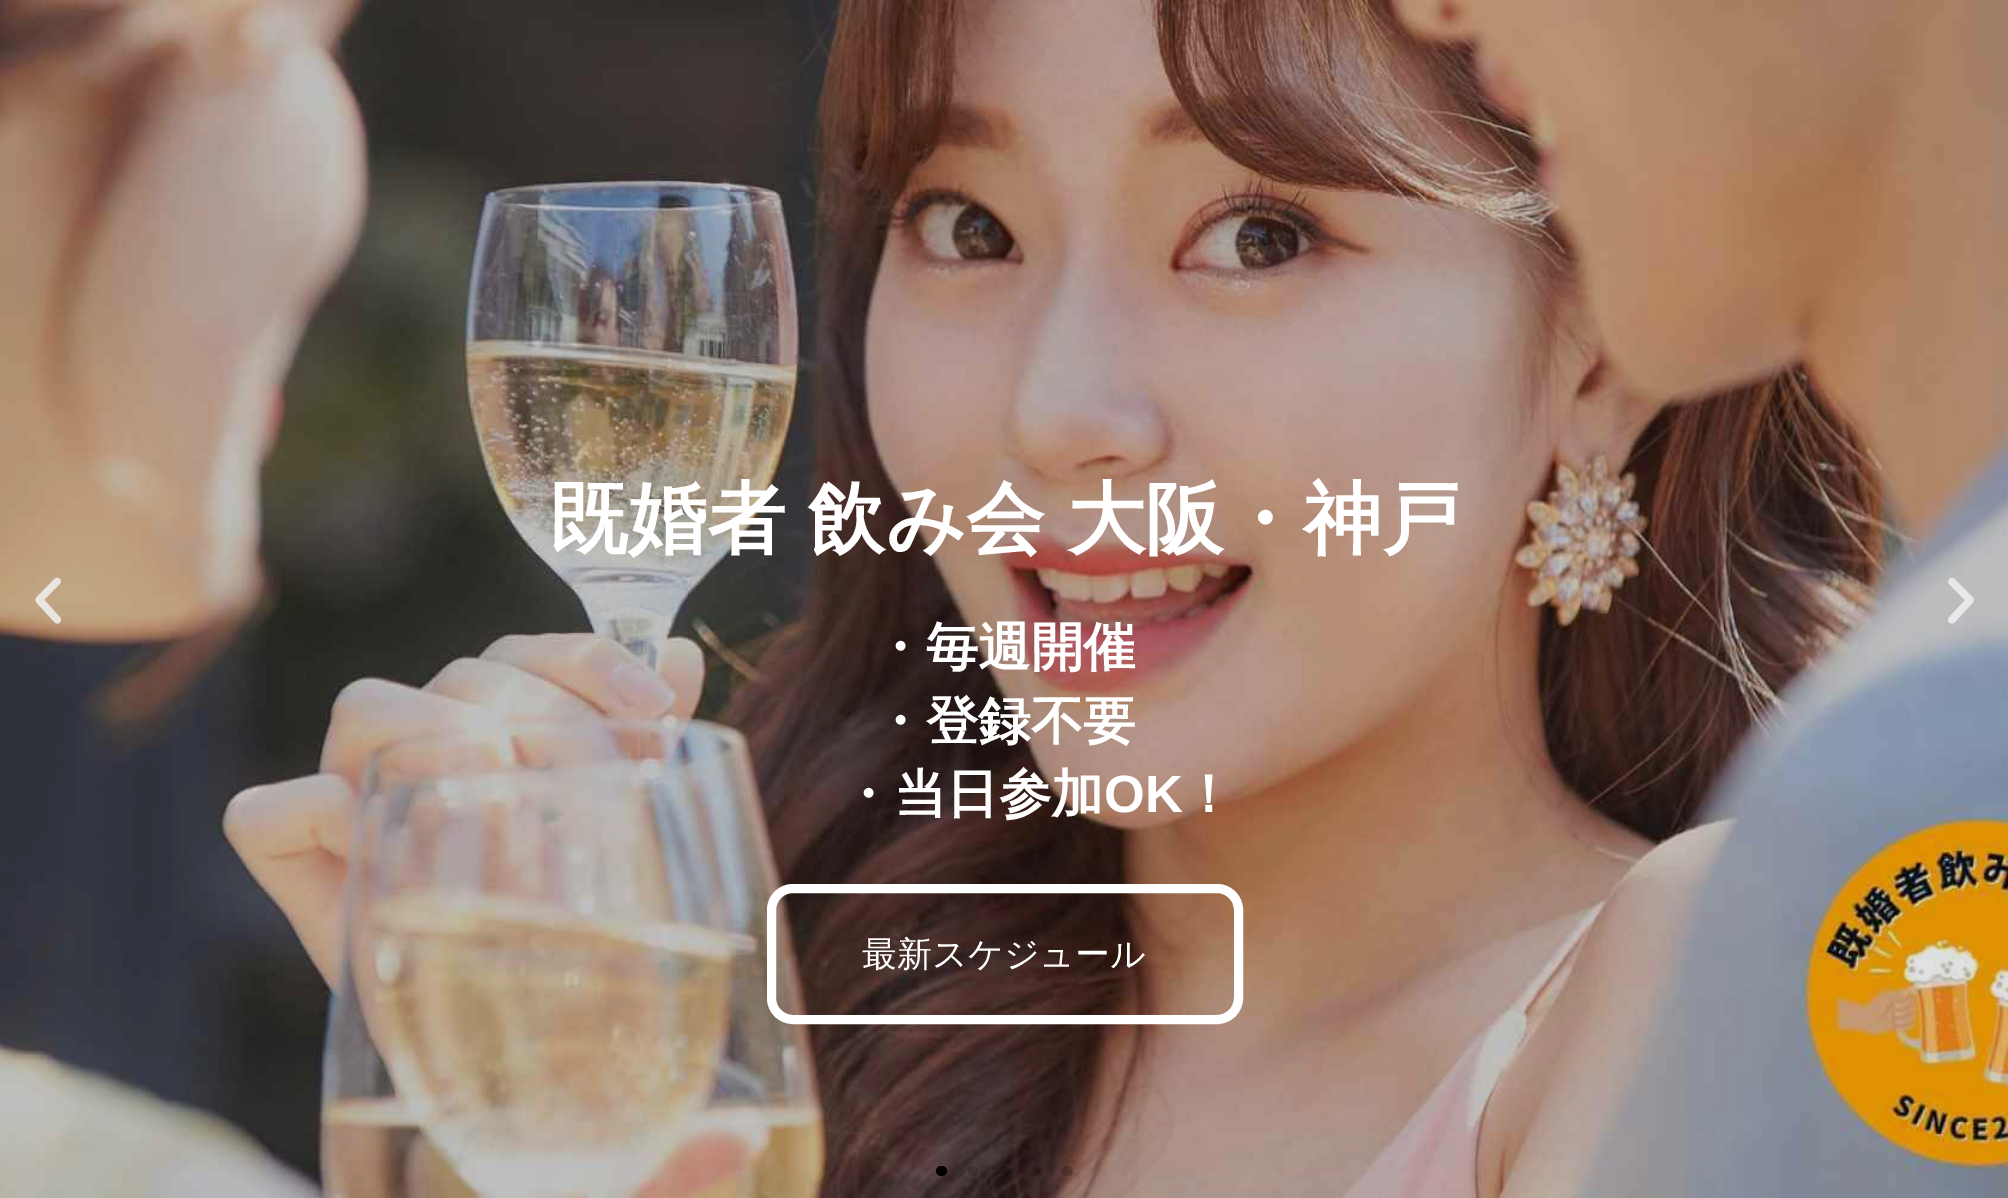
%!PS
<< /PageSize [2008 1198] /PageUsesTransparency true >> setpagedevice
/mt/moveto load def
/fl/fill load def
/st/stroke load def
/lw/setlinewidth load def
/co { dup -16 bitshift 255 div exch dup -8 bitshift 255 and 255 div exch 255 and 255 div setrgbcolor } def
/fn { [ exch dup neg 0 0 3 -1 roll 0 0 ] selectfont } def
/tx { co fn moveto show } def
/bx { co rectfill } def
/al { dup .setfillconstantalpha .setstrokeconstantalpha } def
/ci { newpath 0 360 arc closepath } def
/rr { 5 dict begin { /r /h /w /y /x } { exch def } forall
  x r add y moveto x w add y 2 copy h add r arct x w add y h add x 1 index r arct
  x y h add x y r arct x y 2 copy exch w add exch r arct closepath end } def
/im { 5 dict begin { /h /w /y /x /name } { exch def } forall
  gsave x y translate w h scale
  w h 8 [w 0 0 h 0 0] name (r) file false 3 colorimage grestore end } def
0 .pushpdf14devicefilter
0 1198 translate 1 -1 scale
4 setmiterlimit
0 0 2008 1198 16#FFFFFF bx
(media/2.raw) 0 0 2008 1198 im
(media/1.raw) 35 577 27 47 im
9 lw
771.5 888.5 467 131 21.5 rr st
(media/3.raw) 1948 577 26 47 im
16#000000 co
936 1166 11 10 5 rr fl
0.2 al
973 1171 5 ci fl
999 1166 11 10 5 rr fl
1036 1171 5 ci fl
1062 1166 11 10 5 rr fl
/WenQuanYiZenHei-Bold 78.75 fn
1 al
16#FFFFFF co
549 546 mt -2 0 32 (既婚者 飲み会 大阪・神戸) widthshow
(・毎週開催) 873 665 /WenQuanYiZenHei-Bold 52.5 16#FFFFFF tx
(・登録不要) 873 739 /WenQuanYiZenHei-Bold 52.5 16#FFFFFF tx
(・当日参加) 841 812 /WenQuanYiZenHei-Bold 52.5 16#FFFFFF tx
(OK) 1104 812 /LiberationSans-Bold 52.5 16#FFFFFF tx
(！) 1182 812 /WenQuanYiZenHei-Bold 52.5 16#FFFFFF tx
(最新スケジュール) 862 966 /WenQuanYiZenHei-Medium 35 16#FFFFFF tx
.poppdf14devicefilter showpage
